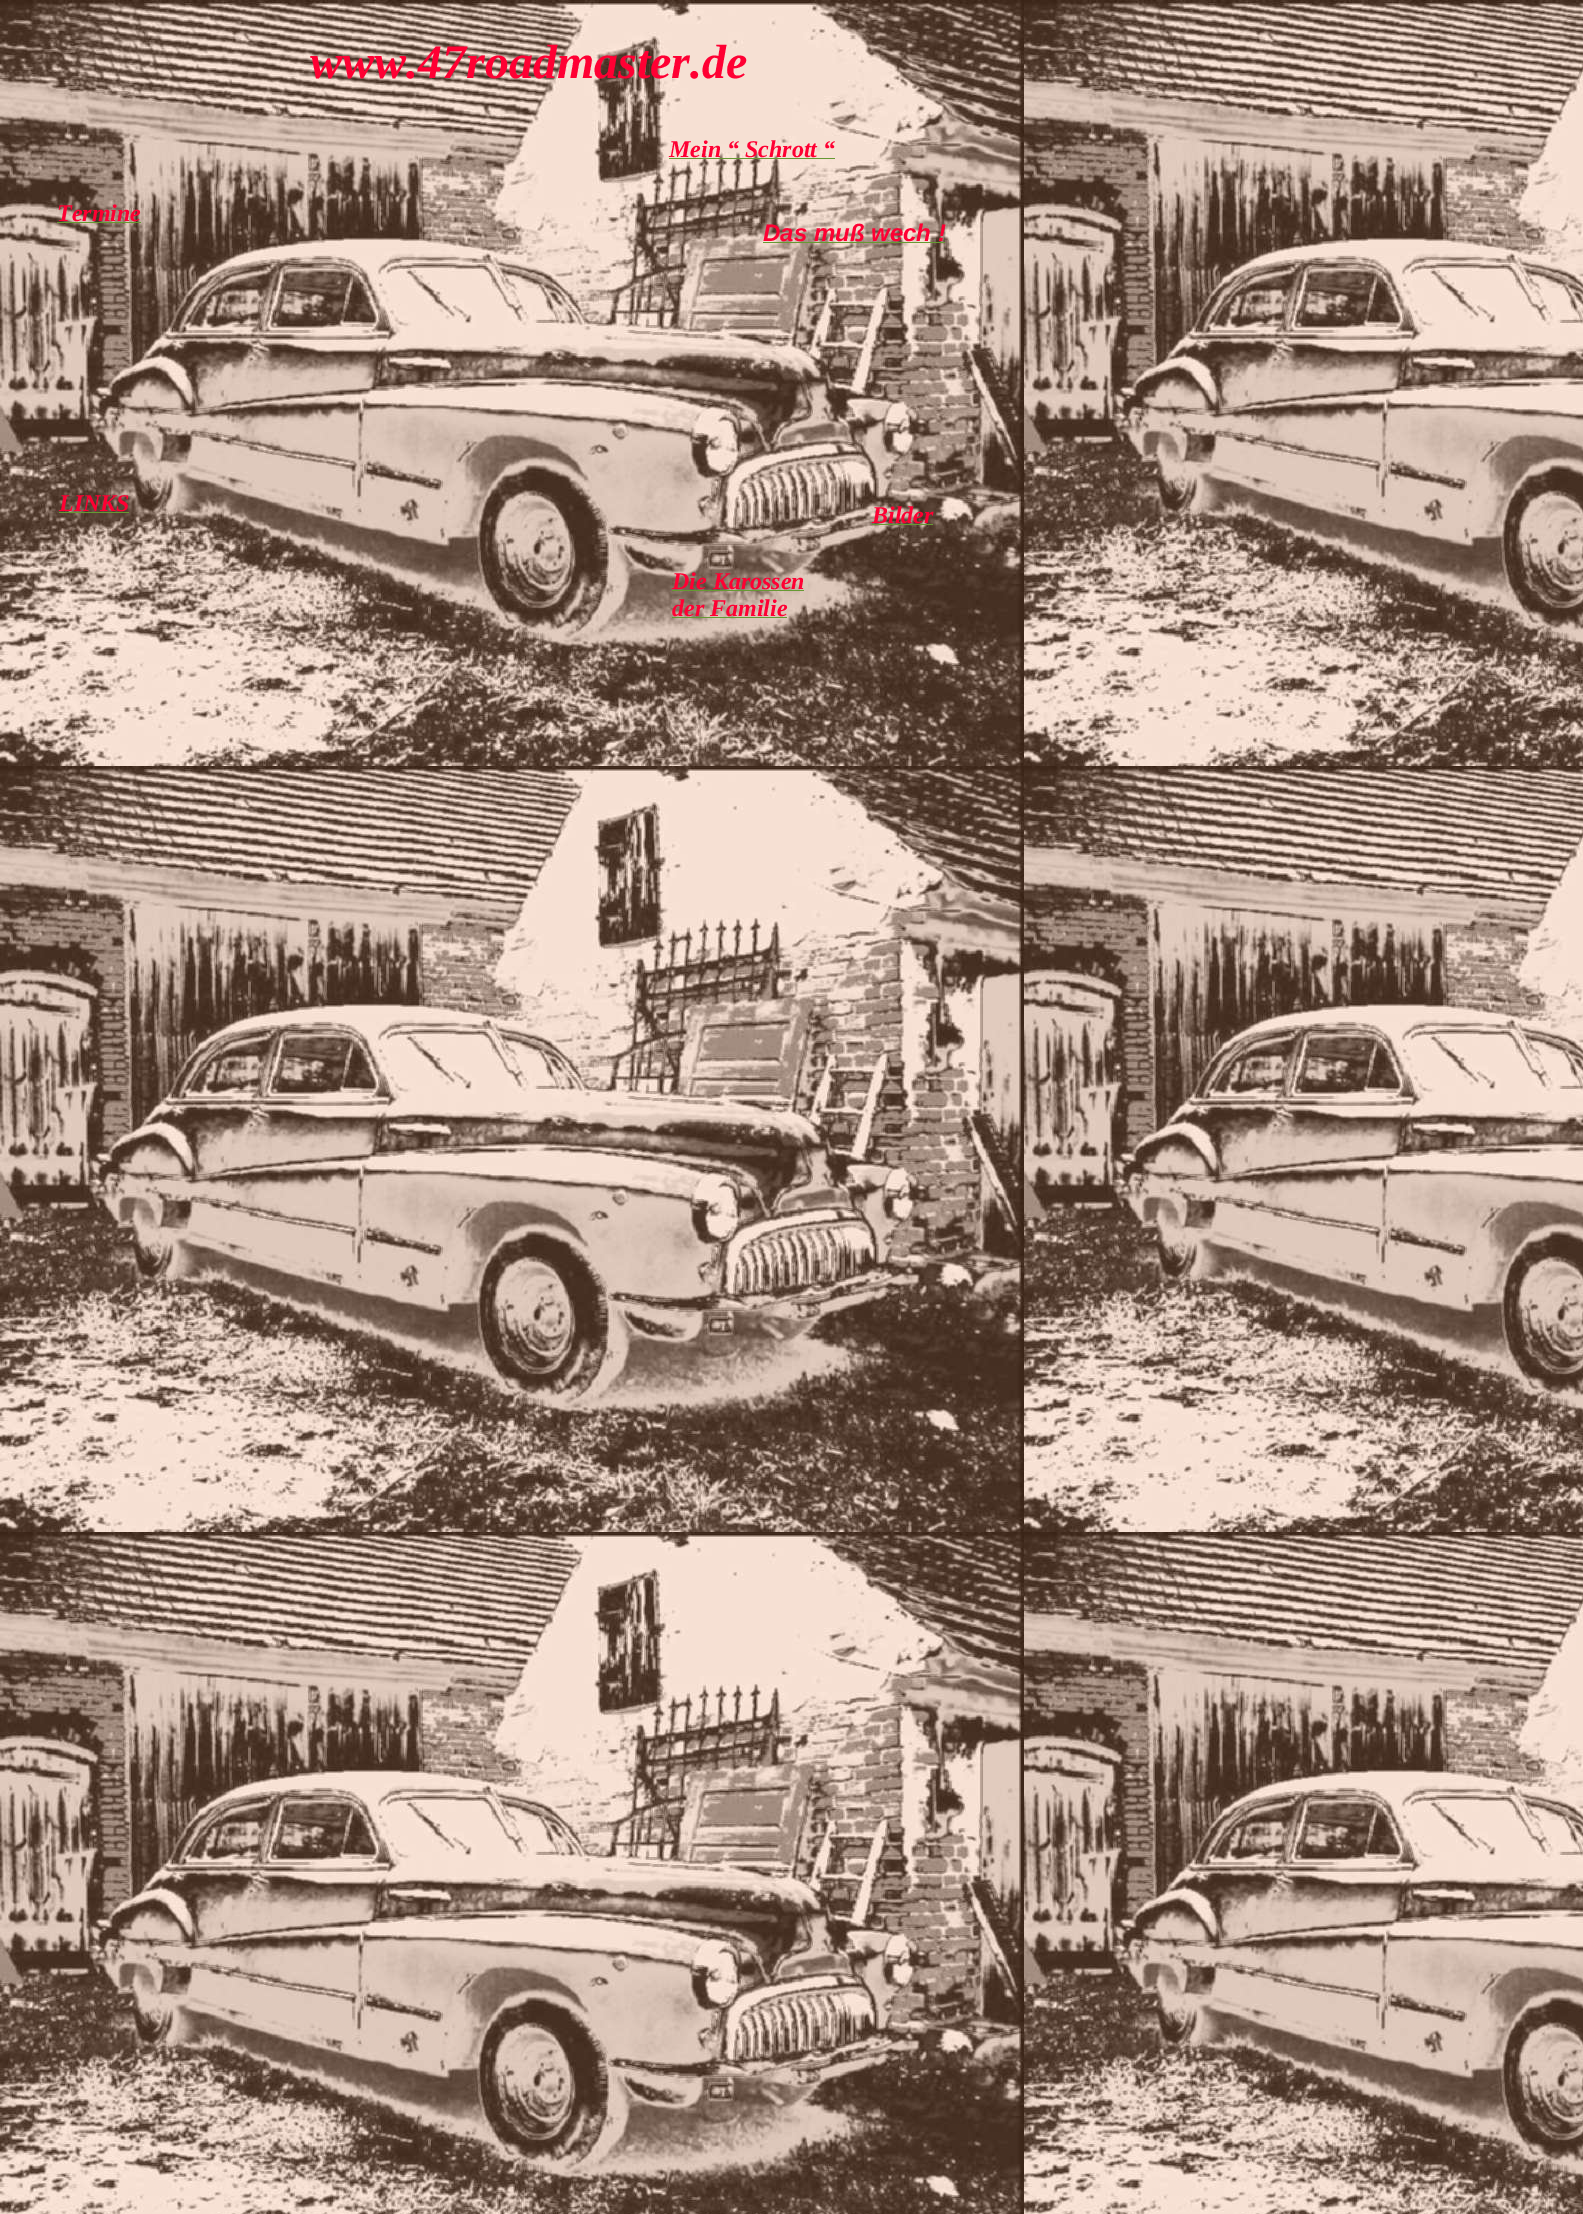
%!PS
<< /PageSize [1583 2214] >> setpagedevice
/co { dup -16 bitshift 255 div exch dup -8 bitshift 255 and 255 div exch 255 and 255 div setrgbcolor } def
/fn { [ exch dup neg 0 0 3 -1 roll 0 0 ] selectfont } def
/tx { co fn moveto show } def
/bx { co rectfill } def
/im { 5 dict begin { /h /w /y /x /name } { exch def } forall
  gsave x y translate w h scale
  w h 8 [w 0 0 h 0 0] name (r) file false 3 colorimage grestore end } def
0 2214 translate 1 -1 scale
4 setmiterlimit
0 0 1583 2214 16#FFFFFF bx
(media/1.raw) 0 0 1583 2214 im
57 222 84 1 16#669933 bx
59 512 70 1 16#669933 bx
669 158 166 1 16#669933 bx
763 242 182 1 16#669933 bx
872 524 61 1 16#669933 bx
672 590 132 1 16#669933 bx
672 617 115 1 16#669933 bx
(www.47roadmaster.de) 310 78 /LiberationSerif-BoldItalic 48 16#FF0033 tx
(Termine) 57 221 /LiberationSerif-BoldItalic 24 16#FF0033 tx
(LINKS) 59 511 /LiberationSerif-BoldItalic 24 16#FF0033 tx
(Mein “ Schrott “) 669 157 /LiberationSerif-BoldItalic 24 16#FF0033 tx
(Das muß wech !) 763 241 /LiberationSans-BoldItalic 24 16#FF0033 tx
(Bilder) 872 523 /LiberationSerif-BoldItalic 24 16#FF0033 tx
(Die Karossen) 672 589 /LiberationSerif-BoldItalic 24 16#FF0033 tx
(der Familie) 672 616 /LiberationSerif-BoldItalic 24 16#FF0033 tx
showpage
